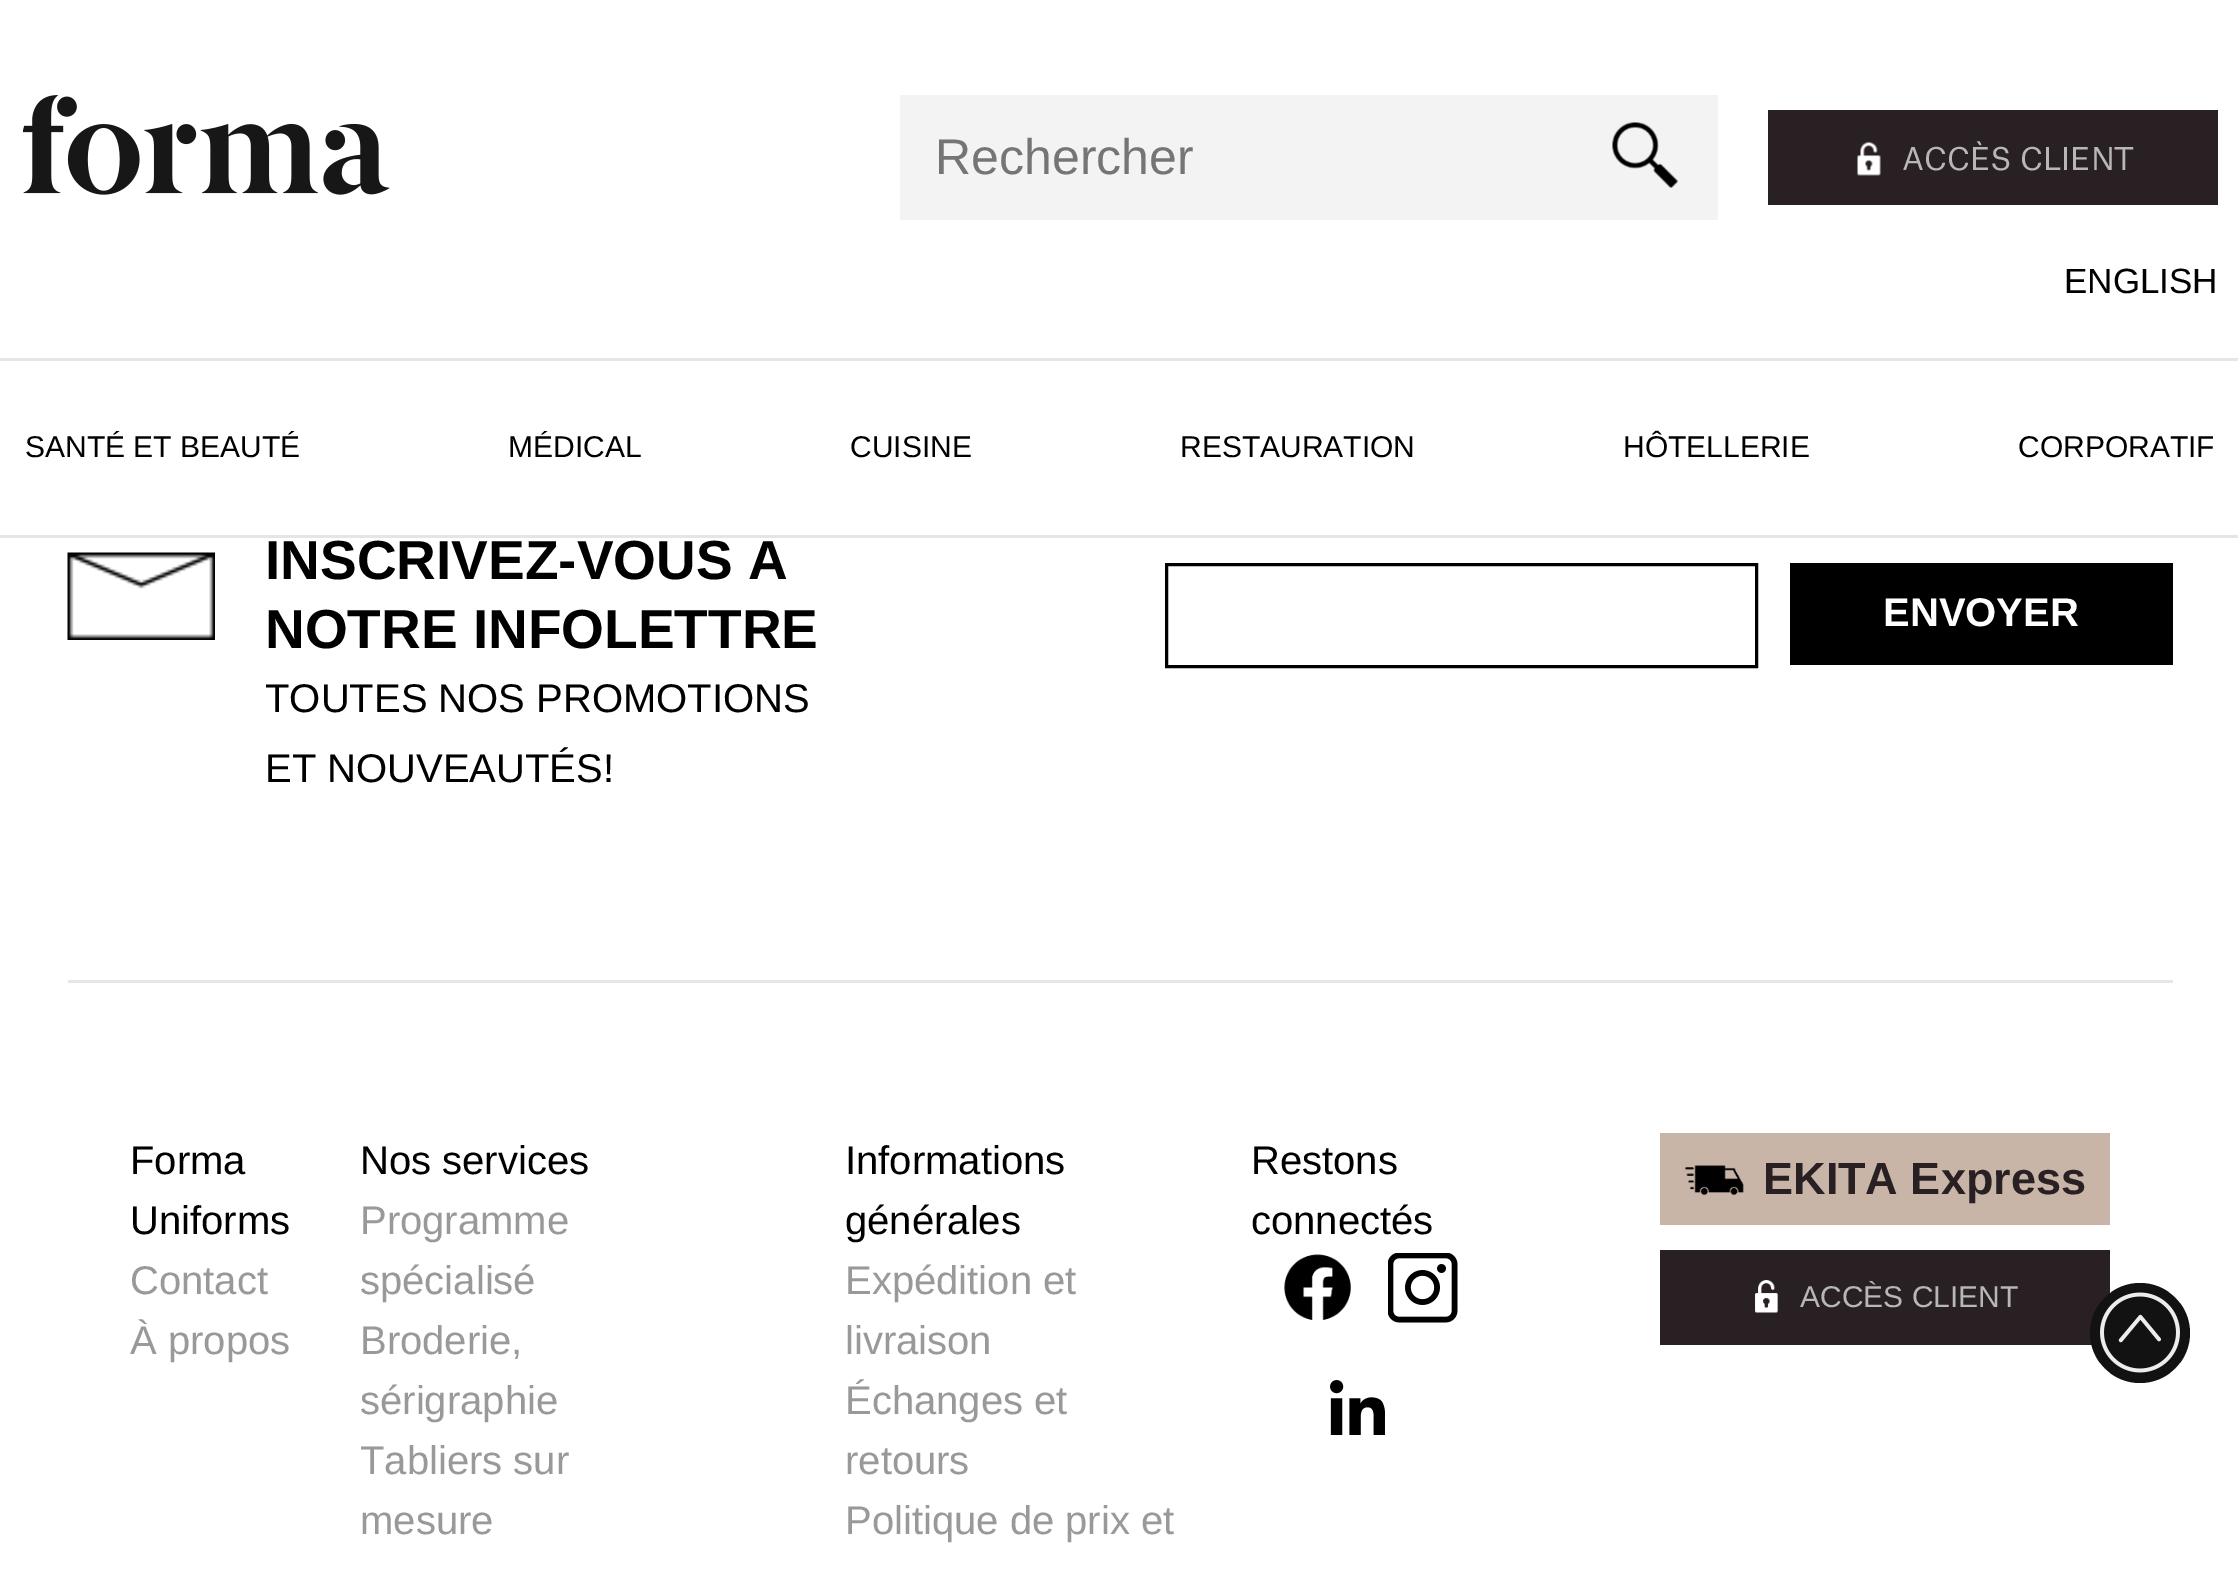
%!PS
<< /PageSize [2238 1582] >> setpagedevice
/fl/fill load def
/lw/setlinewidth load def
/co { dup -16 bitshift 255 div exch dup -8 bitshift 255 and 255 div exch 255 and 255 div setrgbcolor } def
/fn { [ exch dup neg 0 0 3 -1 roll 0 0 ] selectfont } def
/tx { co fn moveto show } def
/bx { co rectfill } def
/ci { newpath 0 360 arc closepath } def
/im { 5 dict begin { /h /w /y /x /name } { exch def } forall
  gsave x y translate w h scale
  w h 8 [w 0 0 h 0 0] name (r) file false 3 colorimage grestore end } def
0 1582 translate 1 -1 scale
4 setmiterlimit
0 0 2238 1582 16#FFFFFF bx
0 358 2238 3 16#E6E6E6 bx
(media/1.raw) 23 95 367 100 im
900 95 818 125 16#F3F3F3 bx
(media/2.raw) 1612 122 66 66 im
1768 110 450 95 16#282022 bx
(media/3.raw) 1857 142 24 34 im
(media/4.raw) 67 552 148 88 im
16#000000 co
3 lw
1166.5 564.5 590 102 rectstroke
1790 563 383 102 16#000000 bx
68 980 2105 3 16#E6E6E6 bx
(media/5.raw) 1284 1254 67 66 im
(media/6.raw) 1388 1253 70 70 im
(media/7.raw) 1330 1380 55 55 im
1660 1133 450 92 16#C8B5A7 bx
(media/8.raw) 1685 1165 59 30 im
1660 1250 450 95 16#282022 bx
(media/9.raw) 1755 1280 23 33 im
16#121212 co
2140 1333 50 ci fl
(media/10.raw) 2100 1292 80 81 im
(Rechercher) 935 174 /LiberationSans-Regular 50 16#757575 tx
(ACCÈS CLIENT) 1902 170 /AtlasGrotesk-Regular 30 16#B7B7B7 tx
(ENGLISH) 2064 293 /LiberationSans-Regular 35 16#000000 tx
(SANTÉ ET BEAUTÉ) 25 457 /LiberationSans-Regular 30 16#000000 tx
(MÉDICAL) 508 457 /LiberationSans-Regular 30 16#000000 tx
(CUISINE) 850 457 /LiberationSans-Regular 30 16#000000 tx
(RESTAURATION) 1180 457 /LiberationSans-Regular 30 16#000000 tx
(HÔTELLERIE) 1623 457 /LiberationSans-Regular 30 16#000000 tx
(CORPORATIF) 2018 457 /LiberationSans-Regular 30 16#000000 tx
(INSCRIVEZ-VOUS À) 265 579 /LiberationSans-Bold 55 16#000000 tx
0 535 2238 3 16#E5E5E5 bx
759 530 12 5 16#FFFFFF bx
(NOTRE INFOLETTRE) 265 648 /LiberationSans-Bold 55 16#000000 tx
(TOUTES NOS PROMOTIONS) 265 712 /LiberationSans-Regular 40 16#000000 tx
(ET NOUVEAUTÉS!) 265 782 /LiberationSans-Regular 40 16#000000 tx
(ENVOYER) 1883 626 /LiberationSans-Bold 40 16#FFFFFF tx
(Forma) 130 1174 /LiberationSans-Regular 40 16#000000 tx
(Uniforms) 130 1234 /LiberationSans-Regular 40 16#000000 tx
(Contact) 130 1294 /LiberationSans-Regular 40 16#999999 tx
(À propos) 130 1354 /LiberationSans-Regular 40 16#999999 tx
(Nos services) 360 1174 /LiberationSans-Regular 40 16#000000 tx
(Programme) 360 1234 /LiberationSans-Regular 40 16#999999 tx
(spécialisé) 360 1294 /LiberationSans-Regular 40 16#999999 tx
(Broderie,) 360 1354 /LiberationSans-Regular 40 16#999999 tx
(sérigraphie) 360 1414 /LiberationSans-Regular 40 16#999999 tx
(Tabliers sur) 360 1474 /LiberationSans-Regular 40 16#999999 tx
(mesure) 360 1534 /LiberationSans-Regular 40 16#999999 tx
(Informations) 845 1174 /LiberationSans-Regular 40 16#000000 tx
(générales) 845 1234 /LiberationSans-Regular 40 16#000000 tx
(Expédition et) 845 1294 /LiberationSans-Regular 40 16#999999 tx
(livraison) 845 1354 /LiberationSans-Regular 40 16#999999 tx
(Échanges et) 845 1414 /LiberationSans-Regular 40 16#999999 tx
(retours) 845 1474 /LiberationSans-Regular 40 16#999999 tx
(Politique de prix et) 845 1534 /LiberationSans-Regular 40 16#999999 tx
(Restons) 1251 1174 /LiberationSans-Regular 40 16#000000 tx
(connectés) 1251 1234 /LiberationSans-Regular 40 16#000000 tx
(EKITA Express) 1763 1194 /LiberationSans-Bold 45 16#282022 tx
(ACCÈS CLIENT) 1800 1307 /LiberationSans-Regular 30 16#B7B7B7 tx
showpage
